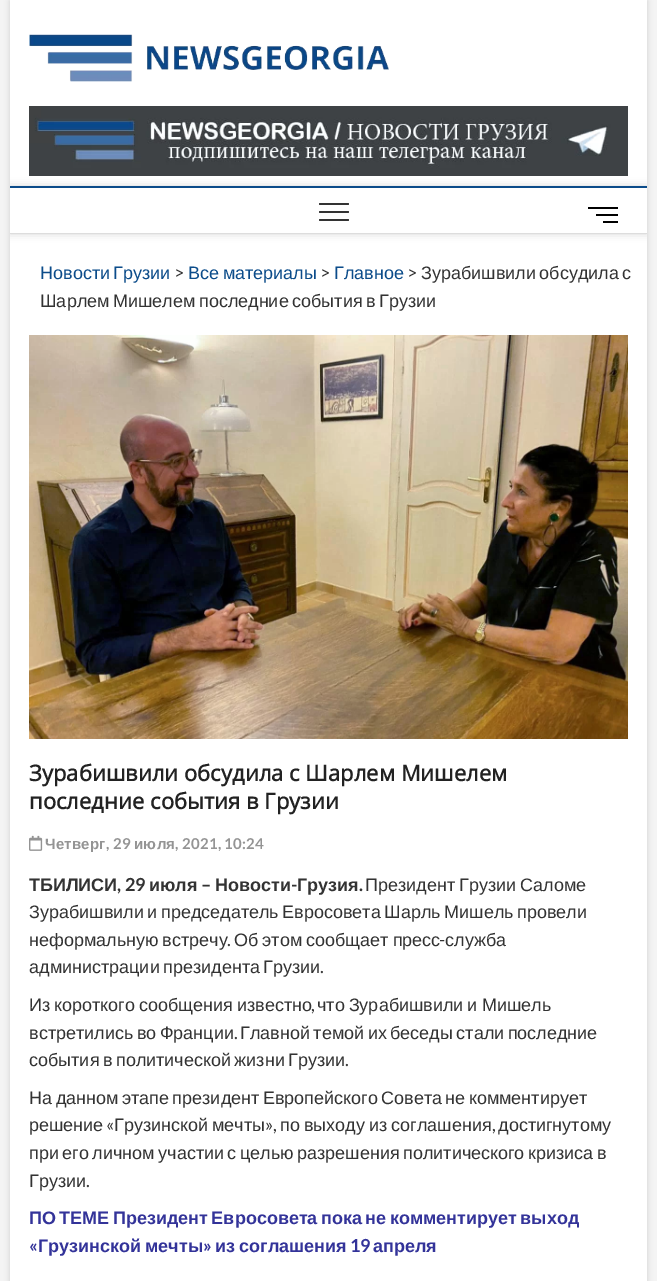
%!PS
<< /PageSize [657 1281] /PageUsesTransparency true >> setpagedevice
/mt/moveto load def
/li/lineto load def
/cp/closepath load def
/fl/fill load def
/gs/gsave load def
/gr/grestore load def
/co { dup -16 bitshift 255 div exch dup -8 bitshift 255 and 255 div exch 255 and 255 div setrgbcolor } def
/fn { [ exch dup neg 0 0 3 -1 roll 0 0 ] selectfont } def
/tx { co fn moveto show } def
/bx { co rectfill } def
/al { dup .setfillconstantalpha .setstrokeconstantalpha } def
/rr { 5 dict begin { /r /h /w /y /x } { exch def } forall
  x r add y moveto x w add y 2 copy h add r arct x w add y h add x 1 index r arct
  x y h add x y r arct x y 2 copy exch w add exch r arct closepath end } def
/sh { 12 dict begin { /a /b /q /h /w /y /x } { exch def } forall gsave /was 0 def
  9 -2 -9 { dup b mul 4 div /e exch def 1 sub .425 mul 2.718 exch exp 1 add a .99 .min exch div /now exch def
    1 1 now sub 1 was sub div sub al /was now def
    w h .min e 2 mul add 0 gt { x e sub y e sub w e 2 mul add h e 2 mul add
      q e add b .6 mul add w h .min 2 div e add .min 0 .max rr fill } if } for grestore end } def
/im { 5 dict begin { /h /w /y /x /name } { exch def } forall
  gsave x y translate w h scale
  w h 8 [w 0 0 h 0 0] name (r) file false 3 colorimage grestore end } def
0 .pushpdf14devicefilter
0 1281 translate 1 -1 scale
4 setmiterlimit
0 0 657 1281 16#F4F4F4 bx
16#000000 co
10 1 637 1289 0 3 .15 sh
10 0 637 1281 16#FFFFFF bx
(media/1.raw) 29 34 360 48 im
(media/2.raw) 29 106 599 70 im
gs
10 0 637 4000 rectclip
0 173 mt 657 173 li 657 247 li 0 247 li cp 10 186 mt 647 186 li 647 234 li 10 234 li cp eoclip newpath
16#000000 co
10 186 637 48 0 4 .15 sh
gr
10 186 637 2 16#0C4C8A bx
10 233 637 1 16#DDDDDD bx
16#333333 co
319 211 30 2 1 rr fl
319 203 30 2 1 rr fl
319 219 30 2 1 rr fl
596 214 22 2 16#000000 bx
588 207 30 2 16#000000 bx
603 221 15 2 16#000000 bx
(media/3.raw) 29 335 599 404 im
(media/4.raw) 29 835 14 16 im
/LiberationSans-Regular 18 fn
16#0C4C8A co
40 279 mt -1.5 0 32 (Новости Грузии) widthshow
(>) 174 279 /Lato-Regular 18 16#333333 tx
/LiberationSans-Regular 18 fn
16#0C4C8A co
188 279 mt -1.5 0 32 (Все материалы) widthshow
(>) 320 279 /Lato-Regular 18 16#333333 tx
(Главное) 334 279 /LiberationSans-Regular 18 16#0C4C8A tx
(>) 407 279 /Lato-Regular 18 16#333333 tx
/LiberationSans-Regular 18 fn
421 279 mt -1.5 0 32 (Зурабишвили обсудила с) widthshow
40 307 mt -1.5 0 32 (Шарлем Мишелем последние события в Грузии) widthshow
(Зурабишвили обсудила с Шарлем Мишелем) 29 781 /OpenSans-Bold 22 16#222222 tx
(последние события в Грузии) 29 809 /OpenSans-Bold 22 16#222222 tx
/LiberationSans-Bold 15 fn
16#949494 co
45 849 mt .25 0 (Четверг) ashow
/Lato-Bold 15 fn
106 849 mt .25 0 (, 29) ashow
/LiberationSans-Bold 15 fn
134 849 mt .25 0 (июля) ashow
/Lato-Bold 15 fn
175 849 mt .25 0 (, 2021, 10:24) ashow
(ТБИЛИСИ) 29 891 /LiberationSans-Bold 18 16#333333 tx
(, 29) 117 891 /Lato-Bold 18 16#333333 tx
(июля) 149 891 /LiberationSans-Bold 18 16#333333 tx
(–) 201 891 /Lato-Bold 18 16#333333 tx
(Новости) 215 891 /LiberationSans-Bold 18 16#333333 tx
(-) 291 891 /Lato-Bold 18 16#333333 tx
(Грузия) 297 891 /LiberationSans-Bold 18 16#333333 tx
/LiberationSans-Regular 18 fn
365 891 mt -1 0 32 (Президент Грузии Саломе) widthshow
(.) 359 891 /Lato-Bold 18 16#333333 tx
/LiberationSans-Regular 18 fn
29 918 mt -1.5 0 32 (Зурабишвили и председатель Евросовета Шарль Мишель провели) widthshow
29 946 mt -1 0 32 (неформальную встречу) widthshow
234 946 mt -1 0 32 (Об этом сообщает пресс) widthshow
(-) 439 946 /Lato-Regular 18 16#333333 tx
(служба) 445 946 /LiberationSans-Regular 18 16#333333 tx
(.) 227 946 /Lato-Regular 18 16#333333 tx
/LiberationSans-Regular 18 fn
29 973 mt -1.5 0 32 (администрации президента Грузии) widthshow
(.) 320 973 /Lato-Regular 18 16#333333 tx
/LiberationSans-Regular 18 fn
29 1011 mt -1 0 32 (Из короткого сообщения известно) widthshow
(,) 311 1011 /Lato-Regular 18 16#333333 tx
/LiberationSans-Regular 18 fn
317 1011 mt -1 0 32 (что Зурабишвили и Мишель) widthshow
29 1039 mt -1.5 0 32 (встретились во Франции) widthshow
(.) 234 1039 /Lato-Regular 18 16#333333 tx
/LiberationSans-Regular 18 fn
240 1039 mt -1.5 0 32 (Главной темой их беседы стали последние) widthshow
29 1066 mt -1.5 0 32 (события в политической жизни Грузии) widthshow
(.) 345 1066 /Lato-Regular 18 16#333333 tx
/LiberationSans-Regular 18 fn
29 1104 mt -1.5 0 32 (На данном этапе президент Европейского Совета не комментирует) widthshow
(решение) 29 1131 /LiberationSans-Regular 18 16#333333 tx
(«) 106 1131 /Lato-Regular 18 16#333333 tx
/LiberationSans-Regular 18 fn
114 1131 mt -1 0 32 (Грузинской мечты) widthshow
(»,) 265 1131 /Lato-Regular 18 16#333333 tx
/LiberationSans-Regular 18 fn
280 1131 mt -1 0 32 (по выходу из соглашения) widthshow
(,) 492 1131 /Lato-Regular 18 16#333333 tx
(достигнутому) 498 1131 /LiberationSans-Regular 18 16#333333 tx
29 1159 mt -1.5 0 32 (при его личном участии с целью разрешения политического кризиса в) widthshow
(Грузии) 29 1187 /LiberationSans-Regular 18 16#333333 tx
(.) 86 1187 /Lato-Regular 18 16#333333 tx
/LiberationSans-Bold 18 fn
16#333399 co
29 1224 mt -1.5 0 32 (ПО ТЕМЕ Президент Евросовета пока не комментирует выход) widthshow
(«) 29 1252 /Lato-Bold 18 16#333399 tx
/LiberationSans-Bold 18 fn
38 1252 mt -1 0 32 (Грузинской мечты) widthshow
(») 203 1252 /Lato-Bold 18 16#333399 tx
/LiberationSans-Bold 18 fn
215 1252 mt -1 0 32 (из соглашения) widthshow
(19) 350 1252 /Lato-Bold 18 16#333399 tx
(апреля) 373 1252 /LiberationSans-Bold 18 16#333399 tx
.poppdf14devicefilter showpage
